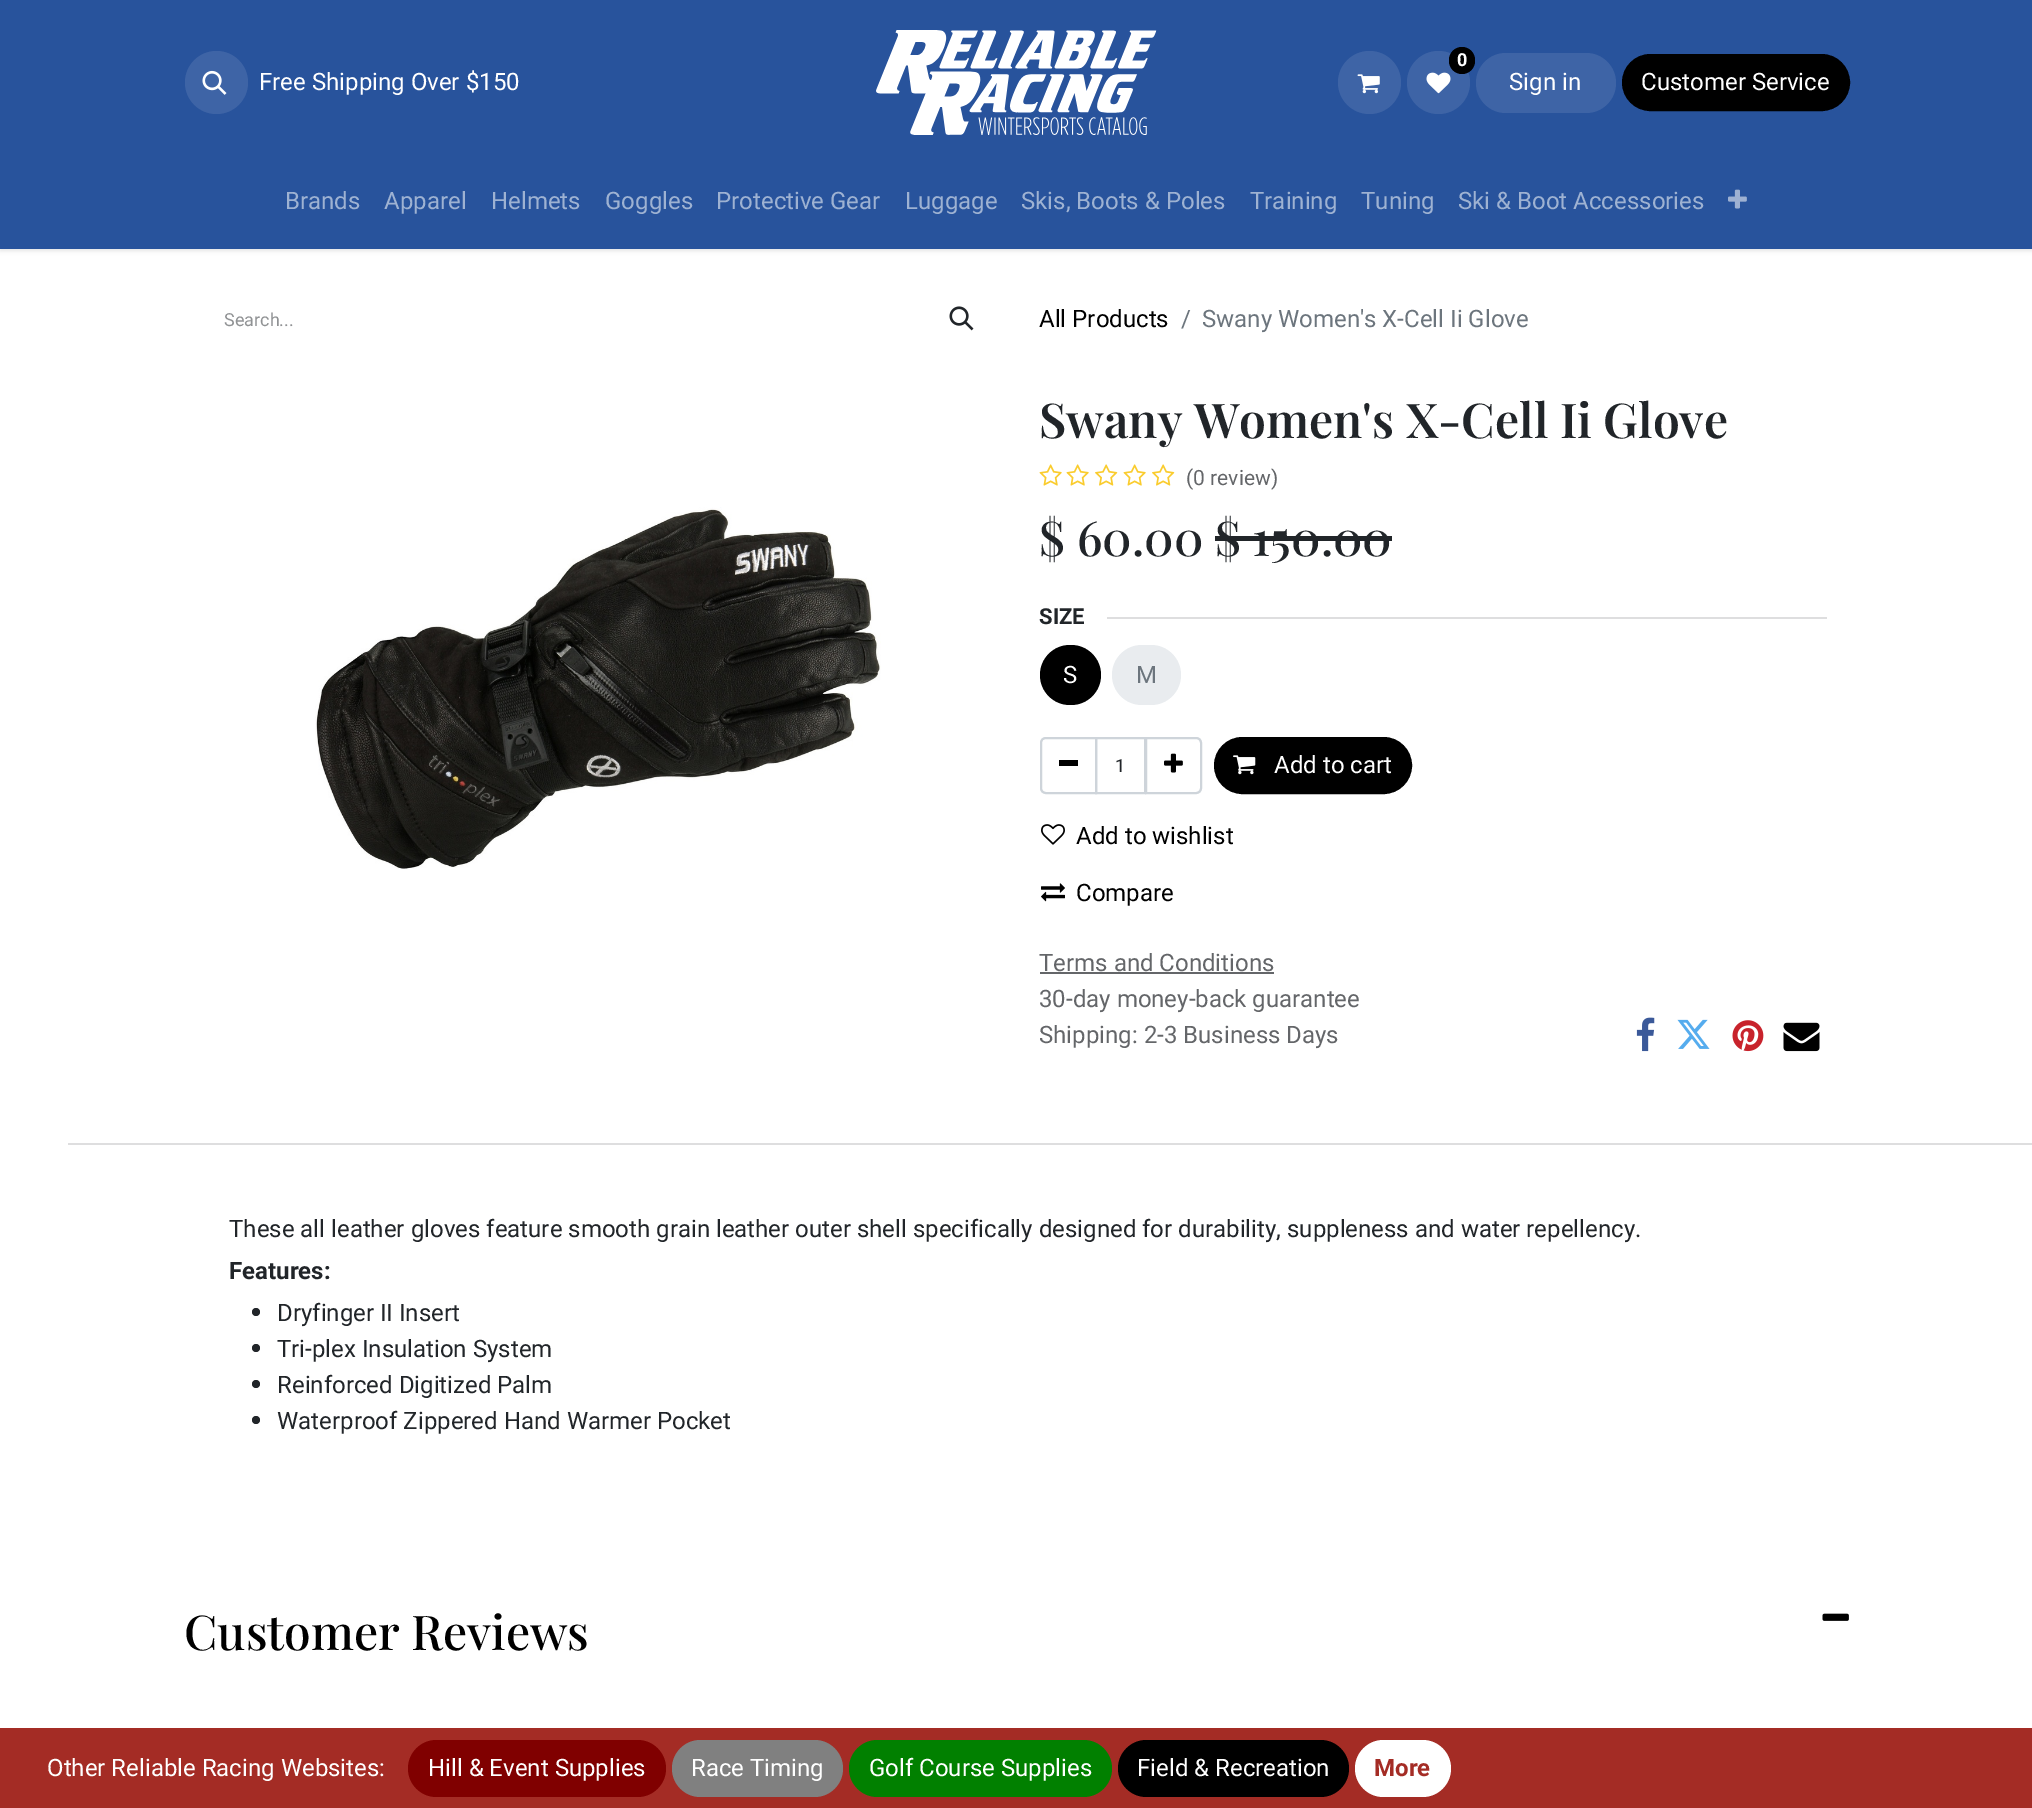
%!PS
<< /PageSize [2032 1808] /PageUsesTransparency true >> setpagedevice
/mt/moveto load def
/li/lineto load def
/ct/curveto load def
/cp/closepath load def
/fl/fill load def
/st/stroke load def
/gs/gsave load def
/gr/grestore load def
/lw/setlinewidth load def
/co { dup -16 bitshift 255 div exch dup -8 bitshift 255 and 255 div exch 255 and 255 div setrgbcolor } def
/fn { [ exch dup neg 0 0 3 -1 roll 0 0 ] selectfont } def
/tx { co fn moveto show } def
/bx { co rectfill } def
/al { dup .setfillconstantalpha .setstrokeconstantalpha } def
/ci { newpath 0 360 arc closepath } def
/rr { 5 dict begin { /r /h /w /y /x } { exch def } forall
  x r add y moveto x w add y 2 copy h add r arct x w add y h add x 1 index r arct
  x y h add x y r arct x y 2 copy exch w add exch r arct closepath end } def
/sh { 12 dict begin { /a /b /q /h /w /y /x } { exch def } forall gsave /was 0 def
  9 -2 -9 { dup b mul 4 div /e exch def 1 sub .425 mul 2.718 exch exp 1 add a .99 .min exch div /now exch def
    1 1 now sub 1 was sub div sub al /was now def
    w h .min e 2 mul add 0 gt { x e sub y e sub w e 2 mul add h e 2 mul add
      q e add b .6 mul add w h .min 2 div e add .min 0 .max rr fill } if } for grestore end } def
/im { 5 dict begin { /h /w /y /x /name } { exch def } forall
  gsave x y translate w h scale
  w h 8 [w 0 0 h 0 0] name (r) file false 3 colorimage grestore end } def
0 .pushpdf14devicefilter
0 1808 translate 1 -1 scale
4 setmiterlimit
0 0 2032 1808 16#FFFFFF bx
16#000000 co
0 2 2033 249 0 2 .1 sh
0 0 2032 249 16#28539C bx
16#3E64A6 co
216.5 82.5 31.5 ci fl
(media/1.raw) 202 70 25 25 im
(media/2.raw) 876 30 281 105 im
1369.5 82.5 31.5 ci fl
(media/3.raw) 1357 74 23 20 im
1438.5 82.5 31.5 ci fl
(media/4.raw) 1426 72 25 22 im
16#000000 co
1449 47 26 27 13 rr fl
16#3E64A6 co
1476 53 140 60 30 rr fl
16#000000 co
1623 55 226 55 27.5 rr gs fl gr
2 lw
st
(media/5.raw) 1728 189 19 20 im
(media/6.raw) 949 306 25 25 im
(media/7.raw) 315 507 566 362 im
(media/8.raw) 1039 464 23 22 im
(media/8.raw) 1066 464 23 22 im
(media/9.raw) 1095 464 23 22 im
(media/8.raw) 1123 464 23 22 im
(media/9.raw) 1152 464 23 22 im
1215 536 177 5 16#212529 bx
1107 617 720 2 16#DEDEDF bx
16#000000 co
1040 645 61 60 30 rr fl
16#E9ECEF co
1112 645 69 60 30 rr fl
16#CED4DA co
1096 738 49 55 rectstroke
1046 738 mt 1096 738 li 1096 793 li 1046 793 li 1043 793 1041 791 1041 788 ct 1041 743 li 1041 740 1043 738 1046 738 ct cp st
1059 760 19 6 16#000000 bx
16#CED4DA co
1146 738 mt 1196 738 li 1199 738 1201 740 1201 743 ct 1201 788 li 1201 791 1199 793 1196 793 ct 1146 793 li cp st
(media/10.raw) 1164 753 19 20 im
16#000000 co
1215 738 196 55 27.5 rr gs fl gr
st
(media/11.raw) 1233 755 23 20 im
(media/12.raw) 1041 824 24 21 im
(media/13.raw) 1041 883 24 19 im
1040 972 234 2 16#646669 bx
(media/14.raw) 1636 1017 19 35 im
(media/15.raw) 1677 1019 33 30 im
(media/16.raw) 1732 1020 32 32 im
(media/17.raw) 1783 1022 37 30 im
68 1143 1964 2 16#DEDEDF bx
16#212529 co
256 1312 4 ci fl
256 1348 4 ci fl
256 1384 4 ci fl
256 1420 4 ci fl
(media/18.raw) 1822 1613 27 8 im
0 1728 2032 80 16#A42C25 bx
16#800000 co
408 1740 258 57 28.5 rr fl
16#808080 co
672 1740 171 57 28.5 rr fl
16#018000 co
849 1740 263 57 28.5 rr fl
16#000000 co
1118 1740 231 57 28.5 rr fl
16#FFFFFF co
1355 1740 96 57 28.5 rr fl
(Free Shipping Over $150) 259 90 /Roboto-Regular 24 16#FFFFFF tx
(0) 1457 66 /Roboto-Bold 18 16#FFFFFF tx
(Sign in) 1509 90 /Roboto-Regular 24 16#FFFFFF tx
(Customer Service) 1641 90 /Roboto-Regular 24 16#FFFFFF tx
(Brands) 285 209 /Roboto-Regular 24 16#9EB2D2 tx
(Apparel) 384 209 /Roboto-Regular 24 16#9EB2D2 tx
(Helmets) 491 209 /Roboto-Regular 24 16#9EB2D2 tx
(Goggles) 605 209 /Roboto-Regular 24 16#9EB2D2 tx
(Protective Gear) 716 209 /Roboto-Regular 24 16#9EB2D2 tx
(Luggage) 905 209 /Roboto-Regular 24 16#9EB2D2 tx
(Skis, Boots & Poles) 1021 209 /Roboto-Regular 24 16#9EB2D2 tx
(Training) 1250 209 /Roboto-Regular 24 16#9EB2D2 tx
(Tuning) 1361 209 /Roboto-Regular 24 16#9EB2D2 tx
(Ski & Boot Accessories) 1458 209 /Roboto-Regular 24 16#9EB2D2 tx
(Search...) 224 326 /Roboto-Regular 18 16#909294 tx
(All Products) 1039 327 /Roboto-Regular 24 16#000000 tx
(/) 1181 327 /Roboto-Regular 24 16#6C757D tx
(Swany Women's X-Cell Ii Glove) 1202 327 /Roboto-Regular 24 16#6C757D tx
(Swany Women's X-Cell Ii Glove) 1039 438 /PlayfairDisplay-SemiBold 48 16#212529 tx
(\(0 review\)) 1186 485 /Roboto-Regular 21 16#646669 tx
($ 60.00 $ 150.00) 1039 556 /PlayfairDisplay-Medium 48 16#212529 tx
(SIZE) 1039 624 /Roboto-Bold 22 16#212529 tx
(S) 1063 683 /Roboto-Regular 24 16#FFFFFF tx
(M) 1136 683 /Roboto-Regular 24 16#6C757D tx
(1) 1115 772 /Roboto-Regular 18 16#212529 tx
(Add to cart) 1274 773 /Roboto-Regular 24 16#FFFFFF tx
(Add to wishlist) 1076 844 /Roboto-Regular 24 16#000000 tx
(Compare) 1076 901 /Roboto-Regular 24 16#000000 tx
(Terms and Conditions) 1039 971 /Roboto-Regular 24 16#646669 tx
(30-day money-back guarantee) 1039 1007 /Roboto-Regular 24 16#646669 tx
(Shipping: 2-3 Business Days) 1039 1043 /Roboto-Regular 24 16#646669 tx
(These all leather gloves feature smooth grain leather outer shell specifically designed for durability, suppleness and water repellency.) 229 1237 /Roboto-Regular 24 16#212529 tx
(Features:) 229 1279 /Roboto-Bold 24 16#212529 tx
(Dryfinger II Insert) 277 1321 /Roboto-Regular 24 16#212529 tx
(Tri-plex Insulation System) 277 1357 /Roboto-Regular 24 16#212529 tx
(Reinforced Digitized Palm) 277 1393 /Roboto-Regular 24 16#212529 tx
(Waterproof Zippered Hand Warmer Pocket) 277 1429 /Roboto-Regular 24 16#212529 tx
(Customer Reviews) 184 1650 /PlayfairDisplay-Medium 48 16#000000 tx
(Other Reliable Racing Websites:) 47 1776 /Roboto-Regular 24 16#FFFFFF tx
(Hill & Event Supplies) 428 1776 /Roboto-Regular 24 16#FFFFFF tx
(Race Timing) 691 1776 /Roboto-Regular 24 16#FFFFFF tx
(Golf Course Supplies) 869 1776 /Roboto-Regular 24 16#FFFFFF tx
(Field & Recreation) 1137 1776 /Roboto-Regular 24 16#FFFFFF tx
(More) 1374 1776 /Roboto-Bold 24 16#A42C25 tx
.poppdf14devicefilter showpage
